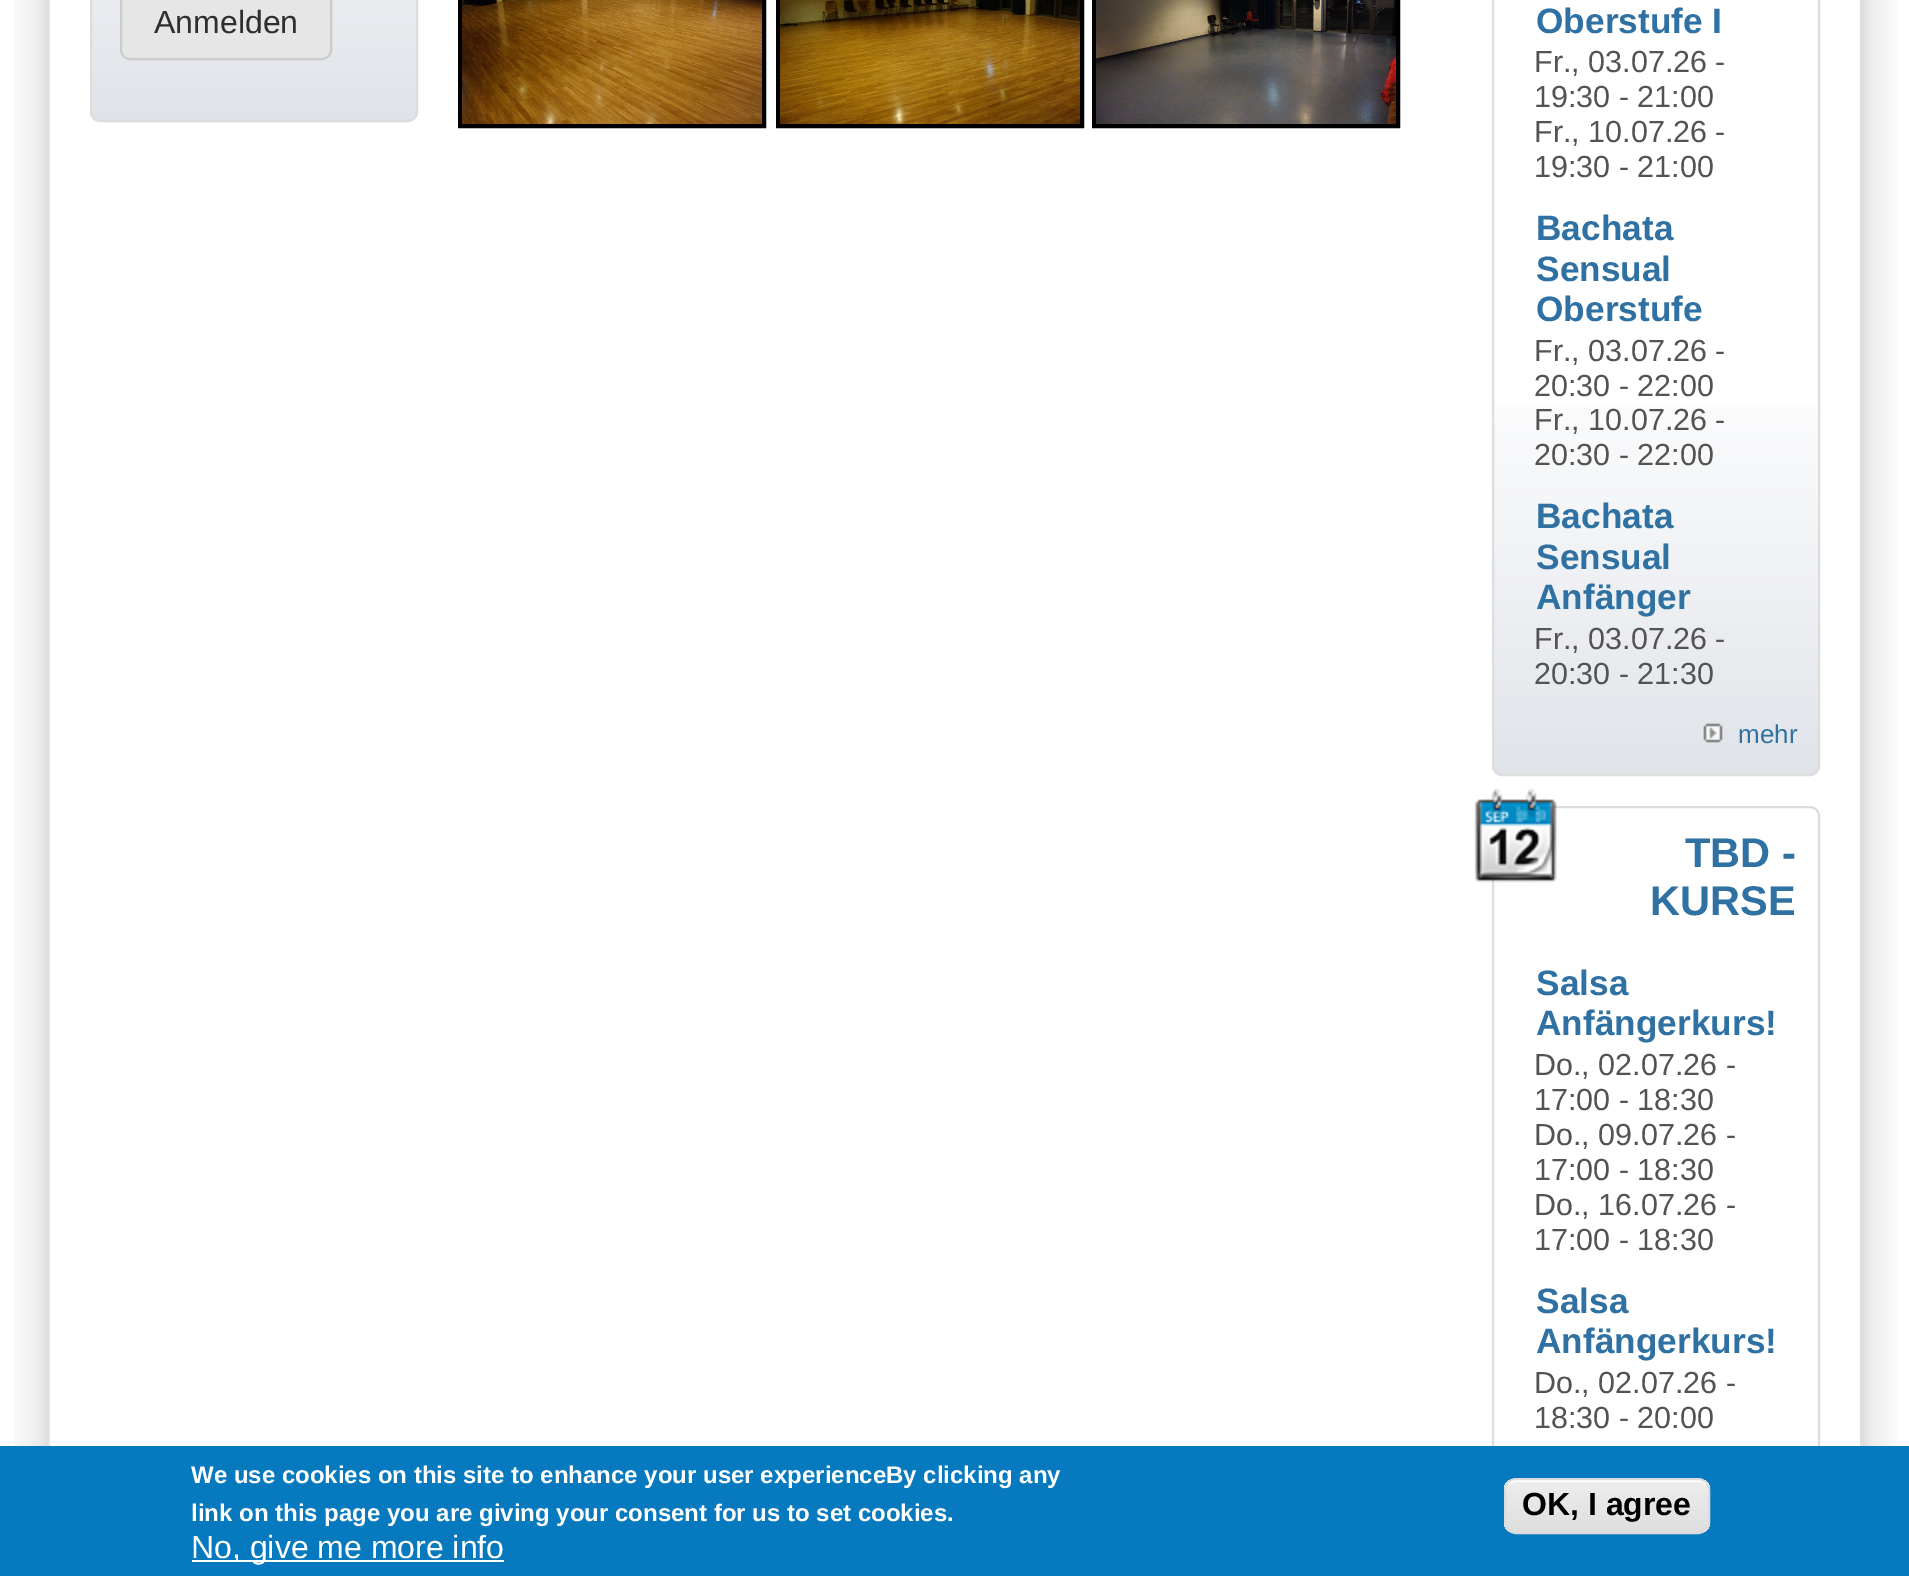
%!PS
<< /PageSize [1909 1576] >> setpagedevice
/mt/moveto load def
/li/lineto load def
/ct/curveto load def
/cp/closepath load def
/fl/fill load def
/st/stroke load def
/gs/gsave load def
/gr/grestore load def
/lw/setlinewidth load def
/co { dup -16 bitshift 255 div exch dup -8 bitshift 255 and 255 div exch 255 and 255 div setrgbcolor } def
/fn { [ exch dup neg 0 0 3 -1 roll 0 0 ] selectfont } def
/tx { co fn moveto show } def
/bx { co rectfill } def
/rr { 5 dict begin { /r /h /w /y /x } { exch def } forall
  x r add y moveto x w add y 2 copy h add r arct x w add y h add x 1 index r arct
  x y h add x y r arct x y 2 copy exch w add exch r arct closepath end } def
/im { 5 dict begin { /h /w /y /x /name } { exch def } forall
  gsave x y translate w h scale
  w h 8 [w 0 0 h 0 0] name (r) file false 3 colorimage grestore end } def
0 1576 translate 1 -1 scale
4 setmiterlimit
0 0 1909 1576 16#FFFFFF bx
(media/1.raw) 13 0 37 1446 im
(media/2.raw) 1860 0 37 1446 im
(media/3.raw) 90 0 328 120 im
16#DDDDDD co
2 lw
91 -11 326 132 9 rr st
16#E6E6E6 co
121 -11 210 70 9 rr gs fl gr
16#CCCCCC co
st
16#000000 co
4 lw
460 -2 304 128 rectstroke
778 -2 304 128 rectstroke
1094 -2 304 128 rectstroke
(media/4.raw) 462 0 300 124 im
(media/5.raw) 780 0 300 124 im
(media/6.raw) 1096 0 300 124 im
(media/7.raw) 1492 404 328 370 im
16#DDDDDD co
2 lw
1493 -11 326 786 9 rr st
(media/8.raw) 1703 723 20 20 im
1493 807 326 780 9 rr st
(media/9.raw) 1474 788 83 95 im
0 1446 1909 130 16#0779BF bx
192 1560 312 2 16#FFFFFF bx
gs
1504 1478 206 56 12 rr clip newpath
gs 1504 1480 mt 1710 1480 li 1710 1532 li 1504 1532 li cp clip newpath
<< /ShadingType 2 /ColorSpace /DeviceRGB /Coords [1607 1480 1607 1532] /Extend [true true] /Function << /FunctionType 3 /Domain [0 1] /Functions [<< /FunctionType 2 /Domain [0 1] /C0 [.929 .929 .929] /C1 [.929 .929 .929] /N 1 >> << /FunctionType 2 /Domain [0 1] /C0 [.929 .929 .929] /C1 [.875 .875 .875] /N 1 >>] /Bounds [.05] /Encode [0 1 0 1] >> >> shfill gr
gr
1516 1482 mt 1698 1482 li 1704 1482 1708 1486 1708 1492 ct 1708 1490 li 1708 1484 1704 1480 1698 1480 ct 1516 1480 li 1510 1480 1506 1484 1506 1490 ct 1506 1492 li 1506 1486 1510 1482 1516 1482 ct cp fl
16#DCDCDC co
1505 1479 204 54 11 rr st
(Anmelden) 154 33 /LiberationSans-Regular 32 16#2E2E2E tx
(Oberstufe I) 1536 33 /LiberationSans-Bold 35.25 16#2F71A2 tx
(Fr., 03.07.26 -) 1534 72 /LiberationSans-Regular 30.5 16#535353 tx
(19:30 - 21:00) 1534 107 /LiberationSans-Regular 30.5 16#535353 tx
(Fr., 10.07.26 -) 1534 142 /LiberationSans-Regular 30.5 16#535353 tx
(19:30 - 21:00) 1534 177 /LiberationSans-Regular 30.5 16#535353 tx
(Bachata) 1536 240 /LiberationSans-Bold 35.25 16#2F71A2 tx
(Sensual) 1536 281 /LiberationSans-Bold 35.25 16#2F71A2 tx
(Oberstufe) 1536 321 /LiberationSans-Bold 35.25 16#2F71A2 tx
(Fr., 03.07.26 -) 1534 361 /LiberationSans-Regular 30.5 16#535353 tx
(20:30 - 22:00) 1534 396 /LiberationSans-Regular 30.5 16#535353 tx
(Fr., 10.07.26 -) 1534 430 /LiberationSans-Regular 30.5 16#535353 tx
(20:30 - 22:00) 1534 465 /LiberationSans-Regular 30.5 16#535353 tx
(Bachata) 1536 528 /LiberationSans-Bold 35.25 16#2F71A2 tx
(Sensual) 1536 569 /LiberationSans-Bold 35.25 16#2F71A2 tx
(Anfänger) 1536 609 /LiberationSans-Bold 35.25 16#2F71A2 tx
(Fr., 03.07.26 -) 1534 649 /LiberationSans-Regular 30.5 16#535353 tx
(20:30 - 21:30) 1534 684 /LiberationSans-Regular 30.5 16#535353 tx
(mehr) 1738 743 /LiberationSans-Regular 26 16#2F71A2 tx
(TBD -) 1685 867 /LiberationSans-Bold 41.5 16#2F71A2 tx
(KURSE) 1650 915 /LiberationSans-Bold 41.5 16#2F71A2 tx
(Salsa) 1536 995 /LiberationSans-Bold 35.25 16#2F71A2 tx
(Anfängerkurs!) 1536 1035 /LiberationSans-Bold 35.25 16#2F71A2 tx
(Do., 02.07.26 -) 1534 1075 /LiberationSans-Regular 30.5 16#535353 tx
(17:00 - 18:30) 1534 1110 /LiberationSans-Regular 30.5 16#535353 tx
(Do., 09.07.26 -) 1534 1145 /LiberationSans-Regular 30.5 16#535353 tx
(17:00 - 18:30) 1534 1180 /LiberationSans-Regular 30.5 16#535353 tx
(Do., 16.07.26 -) 1534 1215 /LiberationSans-Regular 30.5 16#535353 tx
(17:00 - 18:30) 1534 1250 /LiberationSans-Regular 30.5 16#535353 tx
(Salsa) 1536 1313 /LiberationSans-Bold 35.25 16#2F71A2 tx
(Anfängerkurs!) 1536 1353 /LiberationSans-Bold 35.25 16#2F71A2 tx
(Do., 02.07.26 -) 1534 1393 /LiberationSans-Regular 30.5 16#535353 tx
(18:30 - 20:00) 1534 1428 /LiberationSans-Regular 30.5 16#535353 tx
(We use cookies on this site to enhance your user experienceBy clicking any) 191 1483 /LiberationSans-Bold 24 16#FFFFFF tx
(link on this page you are giving your consent for us to set cookies.) 191 1521 /LiberationSans-Bold 24 16#FFFFFF tx
(No, give me more info) 191 1558 /LiberationSans-Regular 32 16#FFFFFF tx
(OK, I agree) 1522 1515 /LiberationSans-Bold 32 16#000000 tx
showpage
